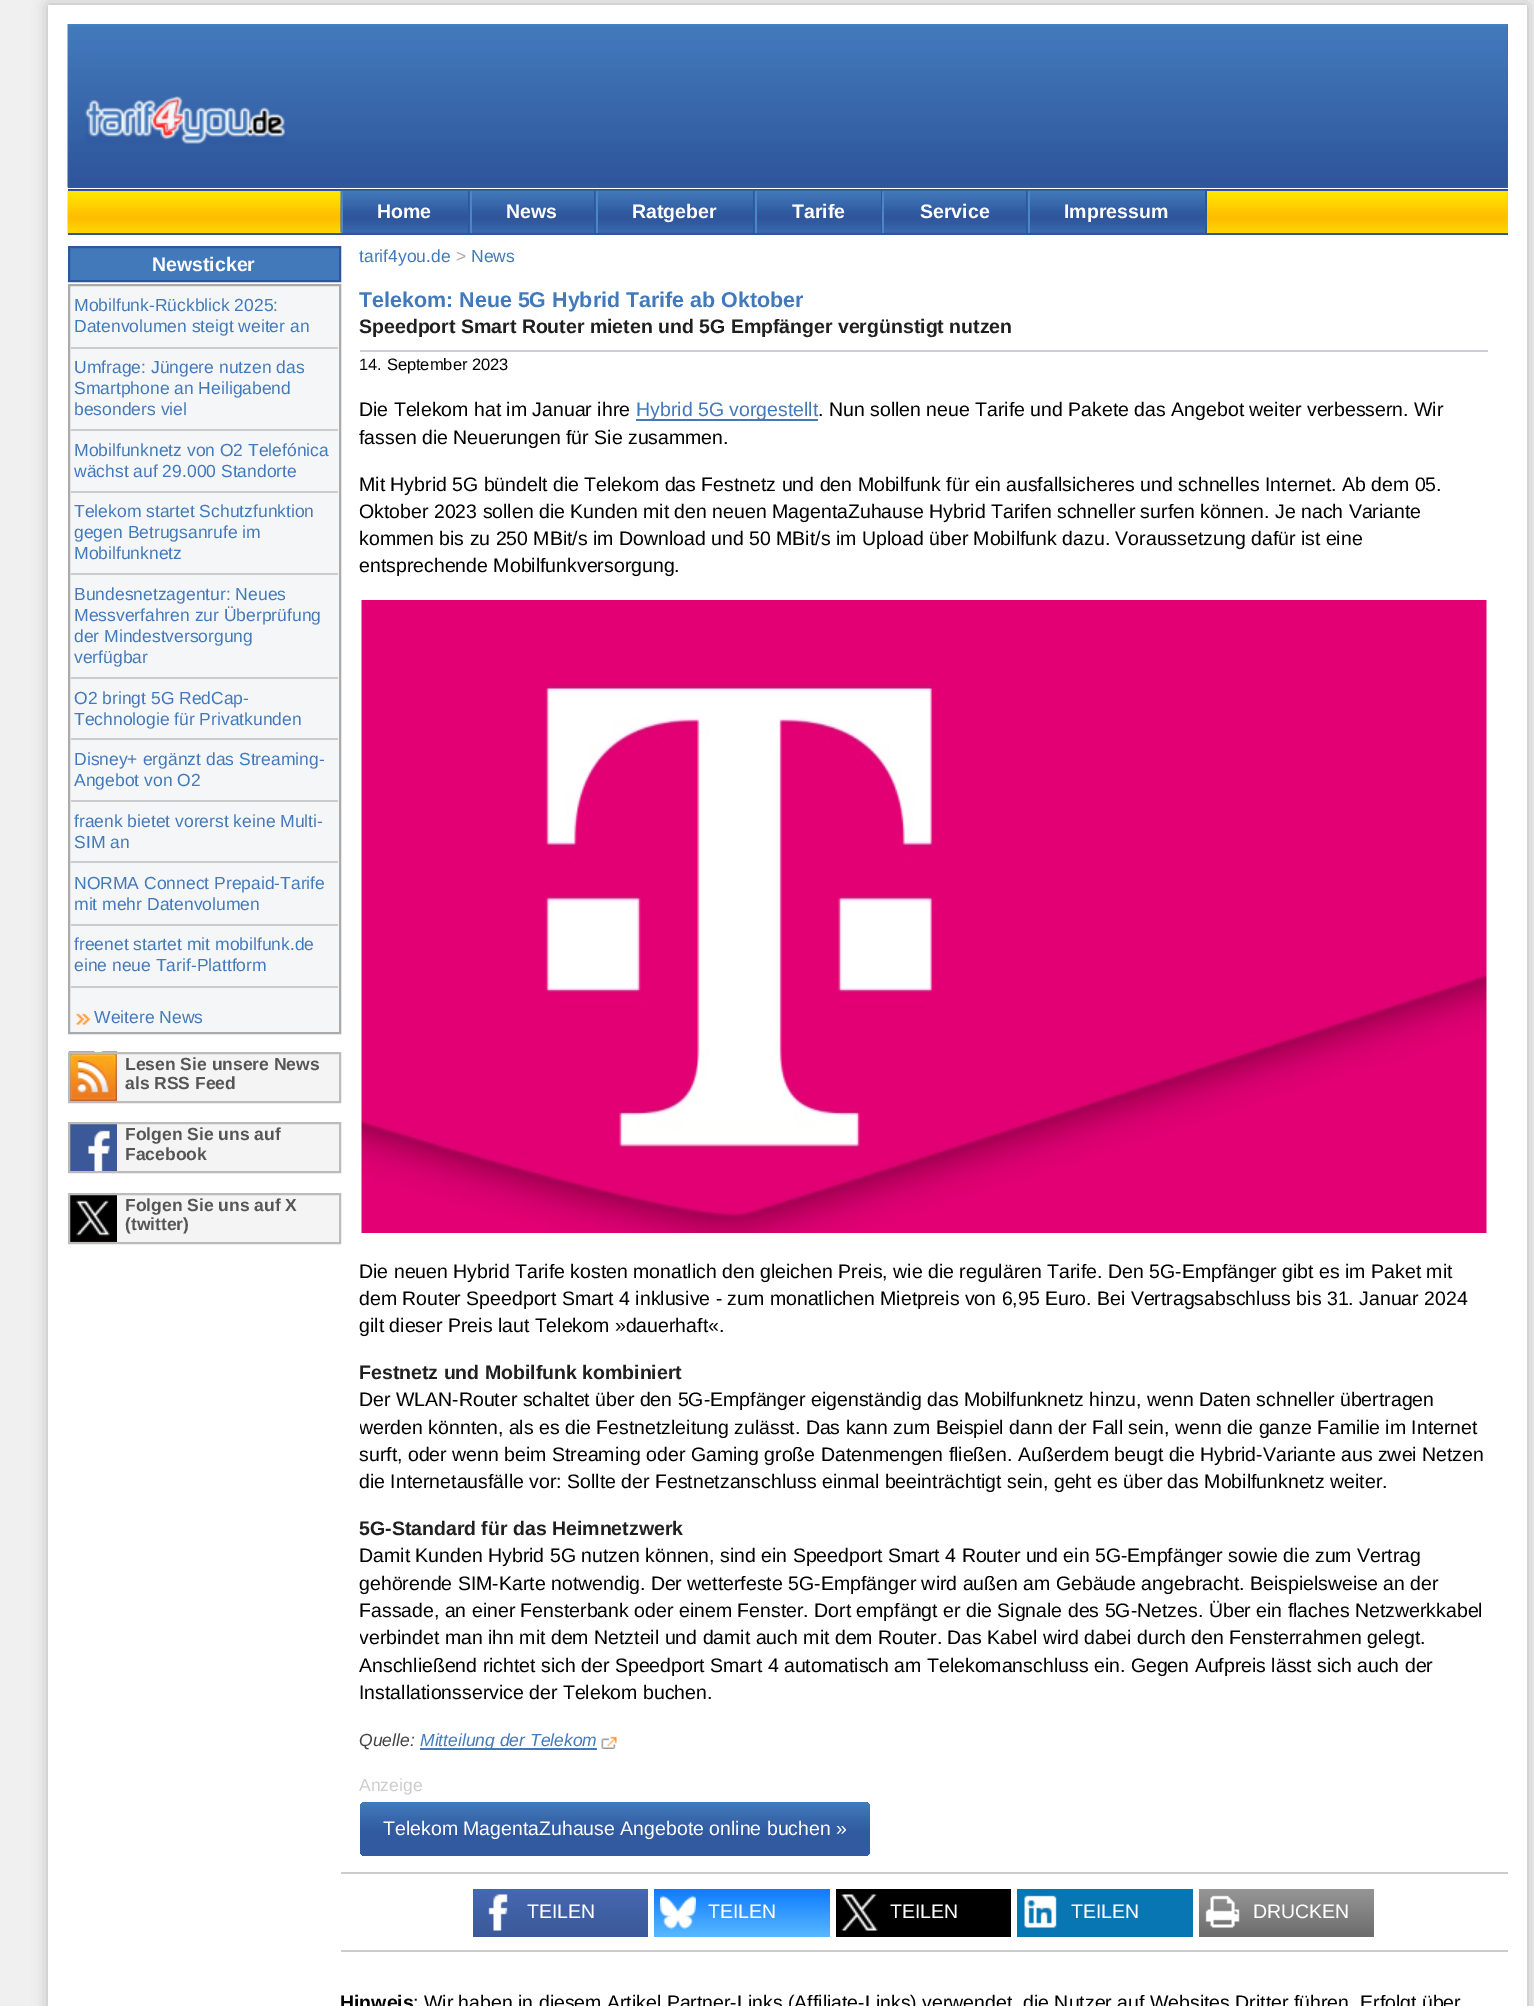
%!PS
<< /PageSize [1534 2006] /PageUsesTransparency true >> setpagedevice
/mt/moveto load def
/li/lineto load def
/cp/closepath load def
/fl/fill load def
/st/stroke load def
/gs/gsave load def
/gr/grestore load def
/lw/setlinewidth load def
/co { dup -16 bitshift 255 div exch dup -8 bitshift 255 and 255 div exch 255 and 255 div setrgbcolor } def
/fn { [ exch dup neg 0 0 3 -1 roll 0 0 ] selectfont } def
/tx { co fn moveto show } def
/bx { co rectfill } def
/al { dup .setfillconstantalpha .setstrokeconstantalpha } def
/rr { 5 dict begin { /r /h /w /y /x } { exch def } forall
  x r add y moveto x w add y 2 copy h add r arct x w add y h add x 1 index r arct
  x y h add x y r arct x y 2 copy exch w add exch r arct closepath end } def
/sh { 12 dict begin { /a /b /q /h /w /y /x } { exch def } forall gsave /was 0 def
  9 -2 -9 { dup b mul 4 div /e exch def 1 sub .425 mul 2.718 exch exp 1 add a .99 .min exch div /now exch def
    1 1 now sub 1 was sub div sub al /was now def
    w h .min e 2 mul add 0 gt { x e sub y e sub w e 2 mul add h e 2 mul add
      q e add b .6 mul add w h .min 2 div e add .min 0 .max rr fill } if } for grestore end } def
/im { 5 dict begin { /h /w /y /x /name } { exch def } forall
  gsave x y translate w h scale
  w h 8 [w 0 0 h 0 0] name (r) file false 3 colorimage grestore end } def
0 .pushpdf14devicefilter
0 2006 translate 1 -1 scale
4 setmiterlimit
0 0 1534 2006 16#F0F0F0 bx
16#7D7D7D co
48 5 1479 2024 0 7.5 .5 sh
48 5 1479 2001 16#FFFFFF bx
68 24 1440 164 16#3867AB bx
(media/1.raw) 67 24 1441 164 im
(media/2.raw) 85 96 200 48 im
1507 191 1 42 16#FFD200 bx
(media/3.raw) 67 189 1441 45 im
68 189 1440 2 16#2F569B bx
68 233 1440 2 16#2F569B bx
343 232 125 1 16#3563A8 bx
(media/4.raw) 340 190 130 43 im
468 191 2 42 16#2F569B bx
341 191 2 42 16#4987C7 bx
472 232 122 1 16#3563A8 bx
(media/5.raw) 469 190 127 42 im
594 191 2 42 16#2F569B bx
470 191 2 42 16#4987C7 bx
598 232 155 1 16#3563A8 bx
(media/6.raw) 595 190 160 42 im
753 191 2 42 16#2F569B bx
596 191 2 42 16#4987C7 bx
757 232 124 1 16#3563A8 bx
(media/7.raw) 754 190 128 42 im
881 191 1 42 16#2F569B bx
755 191 2 42 16#4987C7 bx
884 232 142 1 16#3563A8 bx
(media/8.raw) 882 190 146 42 im
1026 191 2 42 16#2F569B bx
882 191 2 42 16#4987C7 bx
1030 232 175 1 16#3563A8 bx
(media/9.raw) 1027 190 179 42 im
1205 191 2 42 16#2F569B bx
1028 191 2 42 16#4987C7 bx
16#4279BB co
69 247 mt 340 247 li 340 281 li 69 281 li cp gs fl gr
16#2F569B co
2 lw
st
16#F5F6F8 co
69 285 mt 340 285 li 340 1033 li 69 1033 li cp gs fl gr
16#AAAAAA co
st
71 347 267 2 16#CCCCCC bx
71 429 267 2 16#CCCCCC bx
71 491 267 2 16#CCCCCC bx
71 573 267 2 16#CCCCCC bx
71 677 267 2 16#CCCCCC bx
71 738 267 2 16#CCCCCC bx
71 800 267 2 16#CCCCCC bx
71 861 267 2 16#CCCCCC bx
71 924 267 2 16#CCCCCC bx
71 986 267 2 16#CCCCCC bx
(media/10.raw) 76 1013 15 12 im
70 1054 269 47 16#F4F4F4 bx
(media/11.raw) 69 1051 48 50 im
16#BBBBBB co
69 1053 271 49 rectstroke
117 1124 222 47 16#F4F4F4 bx
(media/12.raw) 70 1124 47 47 im
16#BBBBBB co
69 1123 271 49 rectstroke
117 1195 222 47 16#F4F4F4 bx
(media/13.raw) 70 1195 47 47 im
16#BBBBBB co
69 1194 271 49 rectstroke
360 350 1128 2 16#CCCCDD bx
636 419 182 2 16#4279BB bx
(media/14.raw) 361 600 1126 633 im
420 1748 177 2 16#4279BB bx
(media/15.raw) 601 1736 16 13 im
gs 360 1802 510 54 6 rr clip newpath
<< /ShadingType 2 /ColorSpace /DeviceRGB /Coords [615 1802 615 1856] /Extend [true true] /Function << /FunctionType 3 /Domain [0 1] /Functions [<< /FunctionType 2 /Domain [0 1] /C0 [.259 .482 .737] /C1 [.192 .353 .627] /N 1 >> << /FunctionType 2 /Domain [0 1] /C0 [.192 .353 .627] /C1 [.192 .353 .627] /N 1 >>] /Bounds [.55] /Encode [0 1 0 1] >> >> shfill gr
341 1872 1167 2 16#CCCCCC bx
341 1950 1167 2 16#CCCCCC bx
gs 473 1889 mt 648 1889 li 648 1937 li 473 1937 li cp clip newpath
<< /ShadingType 2 /ColorSpace /DeviceRGB /Coords [560 1889 560 1937] /Extend [true true] /Function << /FunctionType 2 /Domain [0 1] /C0 [.275 .408 .698] /C1 [.231 .349 .596] /N 1 >> >> shfill gr
(media/16.raw) 488 1894 20 37 im
gs 654 1889 mt 830 1889 li 830 1937 li 654 1937 li cp clip newpath
<< /ShadingType 2 /ColorSpace /DeviceRGB /Coords [742 1889 742 1937] /Extend [true true] /Function << /FunctionType 2 /Domain [0 1] /C0 [.055 .482 1] /C1 [.345 .722 1] /N 1 >> >> shfill gr
(media/17.raw) 660 1895 36 35 im
836 1889 175 48 16#000000 bx
(media/18.raw) 841 1894 37 37 im
1017 1889 176 48 16#0976B4 bx
(media/19.raw) 1024 1895 33 33 im
gs 1199 1889 mt 1374 1889 li 1374 1937 li 1199 1937 li cp clip newpath
<< /ShadingType 2 /ColorSpace /DeviceRGB /Coords [1286 1889 1286 1937] /Extend [true true] /Function << /FunctionType 2 /Domain [0 1] /C0 [.588 .588 .588] /C1 [.424 .424 .424] /N 1 >> >> shfill gr
(media/20.raw) 1205 1895 35 33 im
(Home) 377 218 /LiberationSans-Bold 19.5 16#FFFFFF tx
(News) 506 218 /LiberationSans-Bold 19.5 16#FFFFFF tx
(Ratgeber) 632 218 /LiberationSans-Bold 19.5 16#FFFFFF tx
(Tarife) 792 218 /LiberationSans-Bold 19.5 16#FFFFFF tx
(Service) 920 218 /LiberationSans-Bold 19.5 16#FFFFFF tx
(Impressum) 1064 218 /LiberationSans-Bold 19.5 16#FFFFFF tx
(Newsticker) 152 271 /LiberationSans-Bold 19.5 16#FFFFFF tx
(Mobilfunk-Rückblick 2025:) 74 311 /LiberationSans-Regular 17.5 16#4279BB tx
(Datenvolumen steigt weiter an) 74 332 /LiberationSans-Regular 17.5 16#4279BB tx
(Umfrage: Jüngere nutzen das) 74 373 /LiberationSans-Regular 17.5 16#4279BB tx
(Smartphone an Heiligabend) 74 394 /LiberationSans-Regular 17.5 16#4279BB tx
(besonders viel) 74 415 /LiberationSans-Regular 17.5 16#4279BB tx
(Mobilfunknetz von O2 Telefónica) 74 456 /LiberationSans-Regular 17.5 16#4279BB tx
(wächst auf 29.000 Standorte) 74 477 /LiberationSans-Regular 17.5 16#4279BB tx
(Telekom startet Schutzfunktion) 74 517 /LiberationSans-Regular 17.5 16#4279BB tx
(gegen Betrugsanrufe im) 74 538 /LiberationSans-Regular 17.5 16#4279BB tx
(Mobilfunknetz) 74 559 /LiberationSans-Regular 17.5 16#4279BB tx
(Bundesnetzagentur: Neues) 74 600 /LiberationSans-Regular 17.5 16#4279BB tx
(Messverfahren zur Überprüfung) 74 621 /LiberationSans-Regular 17.5 16#4279BB tx
(der Mindestversorgung) 74 642 /LiberationSans-Regular 17.5 16#4279BB tx
(verfügbar) 74 663 /LiberationSans-Regular 17.5 16#4279BB tx
(O2 bringt 5G RedCap-) 74 704 /LiberationSans-Regular 17.5 16#4279BB tx
(Technologie für Privatkunden) 74 725 /LiberationSans-Regular 17.5 16#4279BB tx
(Disney+ ergänzt das Streaming-) 74 765 /LiberationSans-Regular 17.5 16#4279BB tx
(Angebot von O2) 74 786 /LiberationSans-Regular 17.5 16#4279BB tx
(fraenk bietet vorerst keine Multi-) 74 827 /LiberationSans-Regular 17.5 16#4279BB tx
(SIM an) 74 848 /LiberationSans-Regular 17.5 16#4279BB tx
(NORMA Connect Prepaid-Tarife) 74 889 /LiberationSans-Regular 17.5 16#4279BB tx
(mit mehr Datenvolumen) 74 910 /LiberationSans-Regular 17.5 16#4279BB tx
(freenet startet mit mobilfunk.de) 74 950 /LiberationSans-Regular 17.5 16#4279BB tx
(eine neue Tarif-Plattform) 74 971 /LiberationSans-Regular 17.5 16#4279BB tx
(Weitere News) 94 1023 /LiberationSans-Regular 17.5 16#4279BB tx
(Lesen Sie unsere News) 125 1070 /LiberationSans-Bold 17.5 16#555555 tx
(als RSS Feed) 125 1089 /LiberationSans-Bold 17.5 16#555555 tx
(Folgen Sie uns auf) 125 1140 /LiberationSans-Bold 17.5 16#555555 tx
(Facebook) 125 1160 /LiberationSans-Bold 17.5 16#555555 tx
(Folgen Sie uns auf X) 125 1211 /LiberationSans-Bold 17.5 16#555555 tx
(\(twitter\)) 125 1230 /LiberationSans-Bold 17.5 16#555555 tx
(tarif4you.de) 359 262 /LiberationSans-Regular 17.5 16#4279BB tx
(>) 456 262 /LiberationSans-Regular 17.5 16#AAAAAA tx
(News) 471 262 /LiberationSans-Regular 17.5 16#4279BB tx
(Telekom: Neue 5G Hybrid Tarife ab Oktober) 359 307 /LiberationSans-Bold 21.45 16#4279BB tx
(Speedport Smart Router mieten und 5G Empfänger vergünstigt nutzen) 359 333 /LiberationSans-Bold 19.5 16#202020 tx
(14. September 2023) 359 370 /LiberationSans-Regular 16.5 16#000000 tx
(Die Telekom hat im Januar ihre) 359 416 /LiberationSans-Regular 19.5 16#000000 tx
(Hybrid 5G vorgestellt) 636 416 /LiberationSans-Regular 19.5 16#4279BB tx
(. Nun sollen neue Tarife und Pakete das Angebot weiter verbessern. Wir) 818 416 /LiberationSans-Regular 19.5 16#000000 tx
(fassen die Neuerungen für Sie zusammen.) 359 444 /LiberationSans-Regular 19.5 16#000000 tx
(Mit Hybrid 5G bündelt die Telekom das Festnetz und den Mobilfunk für ein ausfallsicheres und schnelles Internet. Ab dem 05.) 359 491 /LiberationSans-Regular 19.5 16#000000 tx
(Oktober 2023 sollen die Kunden mit den neuen MagentaZuhause Hybrid Tarifen schneller surfen können. Je nach Variante) 359 518 /LiberationSans-Regular 19.5 16#000000 tx
(kommen bis zu 250 MBit/s im Download und 50 MBit/s im Upload über Mobilfunk dazu. Voraussetzung dafür ist eine) 359 545 /LiberationSans-Regular 19.5 16#000000 tx
(entsprechende Mobilfunkversorgung.) 359 572 /LiberationSans-Regular 19.5 16#000000 tx
(Die neuen Hybrid Tarife kosten monatlich den gleichen Preis, wie die regulären Tarife. Den 5G-Empfänger gibt es im Paket mit) 359 1278 /LiberationSans-Regular 19.5 16#000000 tx
(dem Router Speedport Smart 4 inklusive - zum monatlichen Mietpreis von 6,95 Euro. Bei Vertragsabschluss bis 31. Januar 2024) 359 1305 /LiberationSans-Regular 19.5 16#000000 tx
(gilt dieser Preis laut Telekom »dauerhaft«.) 359 1332 /LiberationSans-Regular 19.5 16#000000 tx
(Festnetz und Mobilfunk kombiniert) 359 1379 /LiberationSans-Bold 19.5 16#202020 tx
(Der WLAN-Router schaltet über den 5G-Empfänger eigenständig das Mobilfunknetz hinzu, wenn Daten schneller übertragen) 359 1406 /LiberationSans-Regular 19.5 16#000000 tx
gs
360 398 1128 1465 rectclip
(werden könnten, als es die Festnetzleitung zulässt. Das kann zum Beispiel dann der Fall sein, wenn die ganze Familie im Internet) 359 1434 /LiberationSans-Regular 19.5 16#000000 tx
gr
(surft, oder wenn beim Streaming oder Gaming große Datenmengen fließen. Außerdem beugt die Hybrid-Variante aus zwei Netzen) 359 1461 /LiberationSans-Regular 19.5 16#000000 tx
(die Internetausfälle vor: Sollte der Festnetzanschluss einmal beeinträchtigt sein, geht es über das Mobilfunknetz weiter.) 359 1488 /LiberationSans-Regular 19.5 16#000000 tx
(5G-Standard für das Heimnetzwerk) 359 1535 /LiberationSans-Bold 19.5 16#202020 tx
(Damit Kunden Hybrid 5G nutzen können, sind ein Speedport Smart 4 Router und ein 5G-Empfänger sowie die zum Vertrag) 359 1562 /LiberationSans-Regular 19.5 16#000000 tx
(gehörende SIM-Karte notwendig. Der wetterfeste 5G-Empfänger wird außen am Gebäude angebracht. Beispielsweise an der) 359 1590 /LiberationSans-Regular 19.5 16#000000 tx
(Fassade, an einer Fensterbank oder einem Fenster. Dort empfängt er die Signale des 5G-Netzes. Über ein flaches Netzwerkkabel) 359 1617 /LiberationSans-Regular 19.5 16#000000 tx
gs
360 398 1128 1465 rectclip
(verbindet man ihn mit dem Netzteil und damit auch mit dem Router. Das Kabel wird dabei durch den Fensterrahmen gelegt.) 359 1644 /LiberationSans-Regular 19.5 16#000000 tx
gr
(Anschließend richtet sich der Speedport Smart 4 automatisch am Telekomanschluss ein. Gegen Aufpreis lässt sich auch der) 359 1672 /LiberationSans-Regular 19.5 16#000000 tx
(Installationsservice der Telekom buchen.) 359 1699 /LiberationSans-Regular 19.5 16#000000 tx
(Quelle:) 359 1746 /LiberationSans-Italic 17.5 16#444444 tx
(Mitteilung der Telekom) 420 1746 /LiberationSans-Italic 17.5 16#4279BB tx
(Anzeige) 359 1791 /LiberationSans-Regular 17.5 16#CCCCCC tx
(Telekom MagentaZuhause Angebote online buchen ») 383 1835 /LiberationSans-Regular 19.5 16#FFFFFF tx
(TEILEN) 527 1918 /LiberationSans-Regular 19.5 16#FFFFFF tx
(TEILEN) 708 1918 /LiberationSans-Regular 19.5 16#FFFFFF tx
(TEILEN) 890 1918 /LiberationSans-Regular 19.5 16#FFFFFF tx
(TEILEN) 1071 1918 /LiberationSans-Regular 19.5 16#FFFFFF tx
(DRUCKEN) 1253 1918 /LiberationSans-Regular 19.5 16#FFFFFF tx
(Hinweis) 340 2009 /LiberationSans-Bold 19.5 16#000000 tx
(: Wir haben in diesem Artikel Partner-Links \(Affiliate-Links\) verwendet, die Nutzer auf Websites Dritter führen. Erfolgt über) 413 2009 /LiberationSans-Regular 19.5 16#000000 tx
.poppdf14devicefilter showpage
